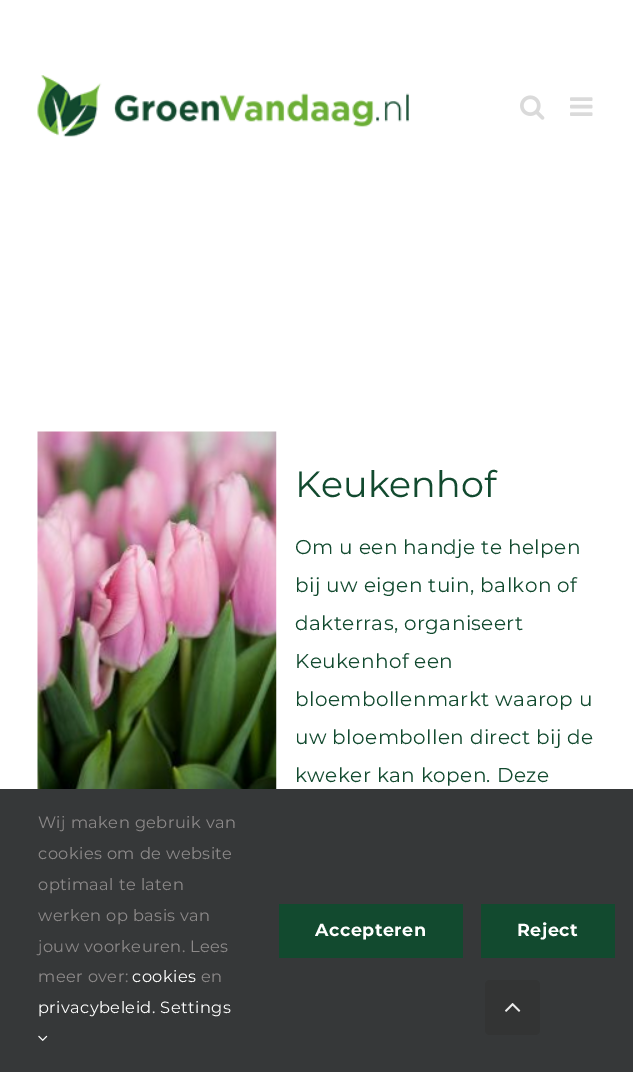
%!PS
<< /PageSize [633 1072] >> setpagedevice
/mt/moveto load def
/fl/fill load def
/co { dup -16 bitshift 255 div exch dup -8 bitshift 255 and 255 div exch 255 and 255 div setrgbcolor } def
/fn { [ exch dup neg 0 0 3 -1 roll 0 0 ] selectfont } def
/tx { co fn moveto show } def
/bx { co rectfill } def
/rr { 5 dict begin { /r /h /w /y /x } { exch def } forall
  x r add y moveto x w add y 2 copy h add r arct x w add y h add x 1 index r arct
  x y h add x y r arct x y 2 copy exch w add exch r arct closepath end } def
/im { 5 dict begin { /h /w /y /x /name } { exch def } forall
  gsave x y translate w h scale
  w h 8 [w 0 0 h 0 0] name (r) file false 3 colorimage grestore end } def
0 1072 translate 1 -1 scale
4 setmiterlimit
0 0 633 1072 16#FFFFFF bx
(media/1.raw) 37 75 372 62 im
(media/2.raw) 520 95 25 25 im
(media/3.raw) 570 97 23 19 im
(media/4.raw) 37 431 240 358 im
0 789 633 283 16#363839 bx
(media/5.raw) 38 1035 10 6 im
279 904 184 54 16#124A2F bx
481 904 134 54 16#124A2F bx
16#333434 co
485 980 55 55 5 rr fl
(media/6.raw) 505 1003 16 9 im
(Keukenhof) 295 497 /Montserrat-Regular 36.5 16#124A2F tx
/Montserrat-Regular 20 fn
295 554 mt .4 0 (Om u een handje te helpen) ashow
295 592 mt .4 0 (bij uw eigen tuin, balkon of) ashow
295 630 mt .4 0 (dakterras, organiseert) ashow
295 668 mt .4 0 (Keukenhof een) ashow
295 706 mt .4 0 (bloembollenmarkt waarop u) ashow
295 744 mt .4 0 (uw bloembollen direct bij de) ashow
295 782 mt .4 0 (kweker kan kopen. Deze) ashow
/Montserrat-Regular 16.25 fn
16#8C8989 co
38 828 mt .4 0 (Wij maken gebruik van) ashow
38 859 mt .4 0 (cookies om de website) ashow
38 890 mt .4 0 (optimaal te laten) ashow
38 921 mt .4 0 (werken op basis van) ashow
38 952 mt .4 0 (jouw voorkeuren. Lees) ashow
38 982 mt .4 0 (meer over:) ashow
16#FFFFFF co
132 982 mt .4 0 (cookies) ashow
16#8C8989 co
201 982 mt .4 0 (en) ashow
16#FFFFFF co
38 1013 mt .4 0 (privacybeleid. Settings) ashow
/Montserrat-Bold 17.5 fn
315 936 mt .5 0 (Accepteren) ashow
517 936 mt .5 0 (Reject) ashow
showpage
